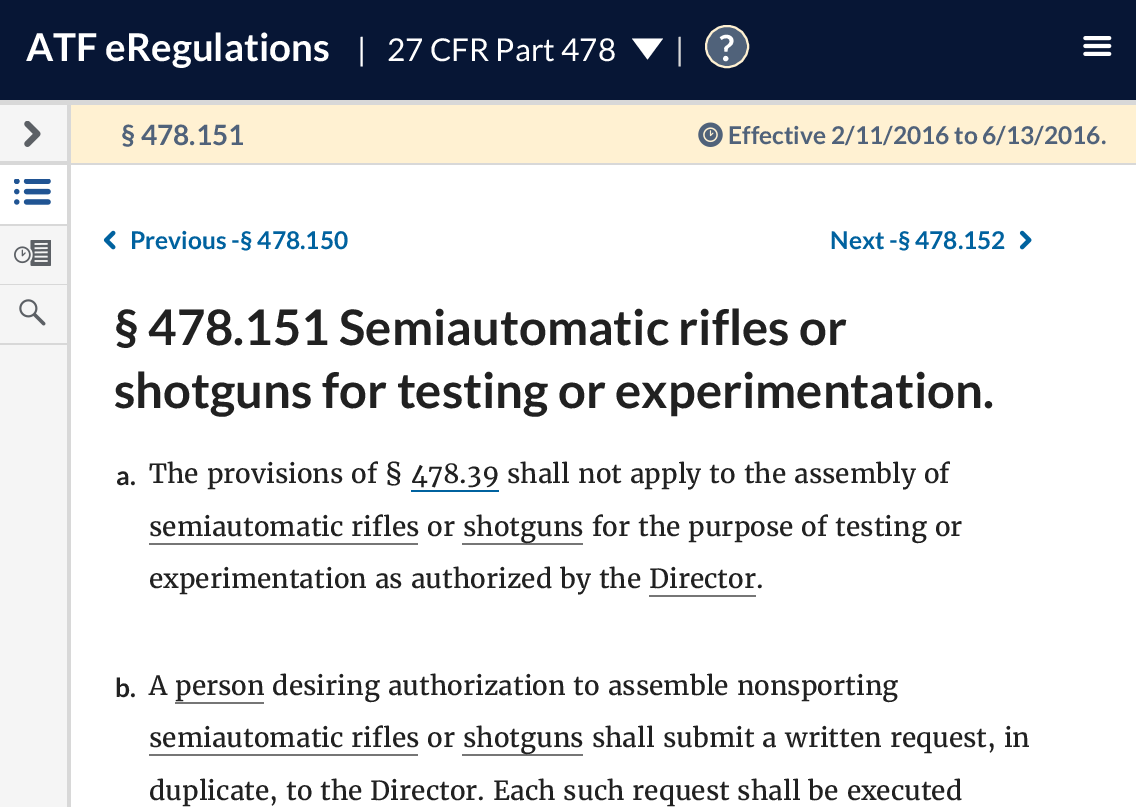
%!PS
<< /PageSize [1136 807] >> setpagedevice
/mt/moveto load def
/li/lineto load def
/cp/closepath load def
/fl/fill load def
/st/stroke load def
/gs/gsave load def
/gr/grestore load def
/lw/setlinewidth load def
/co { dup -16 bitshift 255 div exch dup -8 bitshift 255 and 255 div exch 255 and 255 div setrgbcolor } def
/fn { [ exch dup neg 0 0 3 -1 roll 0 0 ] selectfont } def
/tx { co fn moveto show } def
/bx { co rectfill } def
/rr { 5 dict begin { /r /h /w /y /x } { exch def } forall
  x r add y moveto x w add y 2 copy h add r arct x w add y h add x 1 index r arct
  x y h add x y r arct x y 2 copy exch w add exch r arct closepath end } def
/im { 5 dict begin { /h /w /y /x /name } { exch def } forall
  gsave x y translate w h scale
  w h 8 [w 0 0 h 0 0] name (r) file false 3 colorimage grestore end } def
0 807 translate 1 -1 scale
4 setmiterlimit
0 0 1136 807 16#FFFFFF bx
0 0 1136 100 16#071635 bx
0 100 1136 5 16#D8D8D8 bx
16#FFFFFF co
632 38.5 mt 663 38.5 li 647.5 59.5 li cp fl
16#50627A co
706 26 42 41 20.5 rr gs fl gr
16#FFF1D2 co
2 lw
st
(media/1.raw) 1083 36 29 20 im
71 105 1065 58 16#FFF1D2 bx
71 163 1065 2 16#D8D8D8 bx
0 105 67 179 16#F5F5F5 bx
67 105 4 702 16#D8D8D8 bx
0 161 67 4 16#D8D8D8 bx
(media/2.raw) 24 121 17 26 im
0 224 67 2 16#D8D8D8 bx
0 165 67 59 16#FFFFFF bx
(media/3.raw) 14 179 37 26 im
0 284 67 1 16#D8D8D8 bx
(media/4.raw) 14 240 37 26 im
0 343 67 2 16#D8D8D8 bx
0 285 67 58 16#F5F5F5 bx
(media/5.raw) 19 299 27 27 im
(media/6.raw) 698 122 25 25 im
0 345 67 462 16#F5F5F5 bx
(media/7.raw) 103 230 13 20 im
(media/8.raw) 1019 230 13 20 im
411 490 88 2 16#00629F bx
149 543 269 2 16#767676 bx
462 543 121 2 16#767676 bx
649 595 107 2 16#767676 bx
149 754 269 2 16#767676 bx
462 754 121 2 16#767676 bx
(ATF eRegulations) 26 61 /Lato-Bold 38.5 16#FFFFFF tx
(|) 357 61 /Lato-Regular 31.5 16#FFFFFF tx
(27 CFR Part 478) 387 61 /Lato-Regular 31.5 16#FFFFFF tx
(|) 675 61 /Lato-Regular 31.5 16#D8D8D8 tx
(?) 719 61 /Lato-Bold 36 16#FFFFFF tx
(§ 478.151) 121 145 /Lato-Bold 28 16#50627A tx
(Effective 2/11/2016 to 6/13/2016.) 728 144 /Lato-Bold 24.5 16#50627A tx
(Previous -§ 478.150) 130 249 /Lato-Bold 24.5 16#00629F tx
(Next -§ 478.152) 830 249 /Lato-Bold 24.5 16#00629F tx
(§ 478.151 Semiautomatic rifles or) 114 345 /Lato-Bold 49 16#212121 tx
(shotguns for testing or experimentation.) 114 408 /Lato-Bold 49 16#212121 tx
(a.) 116 485 /Lato-Bold 26.25 16#212121 tx
(The provisions of § 478.39 shall not apply to the assembly of) 149 483 /Merriweather-Regular 26.25 16#212121 tx
(semiautomatic rifles or) 149 536 /Merriweather-Regular 26.25 16#212121 tx
(shotguns for the purpose of testing or) 463 536 /Merriweather-Regular 26.25 16#212121 tx
(experimentation as authorized by the Director.) 149 588 /Merriweather-Regular 26.25 16#212121 tx
(b.) 115 697 /Lato-Bold 26.25 16#212121 tx
(A person desiring authorization to assemble nonsporting) 149 695 /Merriweather-Regular 26.25 16#212121 tx
175 702 89 2 16#767676 bx
(semiautomatic rifles or) 149 747 /Merriweather-Regular 26.25 16#212121 tx
(shotguns shall submit a written request, in) 463 747 /Merriweather-Regular 26.25 16#212121 tx
(duplicate, to the Director. Each such request shall be executed) 149 800 /Merriweather-Regular 26.25 16#212121 tx
showpage
